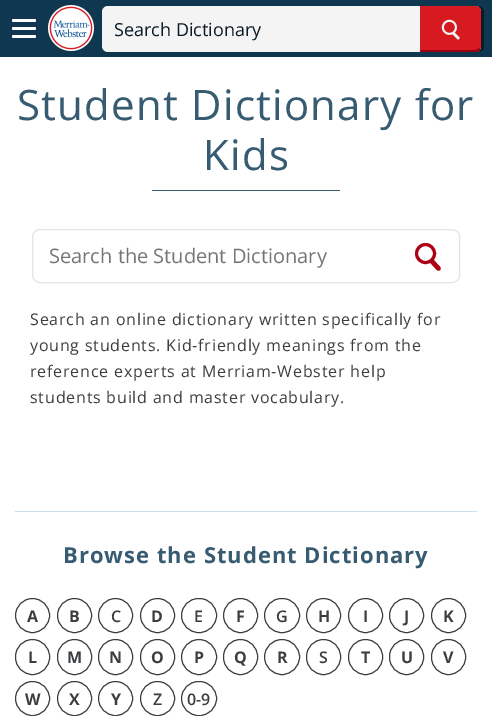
%!PS
<< /PageSize [492 716] >> setpagedevice
/mt/moveto load def
/li/lineto load def
/ct/curveto load def
/cp/closepath load def
/fl/fill load def
/st/stroke load def
/lw/setlinewidth load def
/co { dup -16 bitshift 255 div exch dup -8 bitshift 255 and 255 div exch 255 and 255 div setrgbcolor } def
/fn { [ exch dup neg 0 0 3 -1 roll 0 0 ] selectfont } def
/tx { co fn moveto show } def
/bx { co rectfill } def
/ci { newpath 0 360 arc closepath } def
/rr { 5 dict begin { /r /h /w /y /x } { exch def } forall
  x r add y moveto x w add y 2 copy h add r arct x w add y h add x 1 index r arct
  x y h add x y r arct x y 2 copy exch w add exch r arct closepath end } def
/im { 5 dict begin { /h /w /y /x /name } { exch def } forall
  gsave x y translate w h scale
  w h 8 [w 0 0 h 0 0] name (r) file false 3 colorimage grestore end } def
0 716 translate 1 -1 scale
4 setmiterlimit
0 0 492 716 16#FFFFFF bx
0 0 492 57 16#0F3850 bx
16#FFFFFF co
12 19 24 3 1.5 rr fl
12 27 24 3 1.5 rr fl
12 35 24 3 1.5 rr fl
(media/1.raw) 48 5 46 46 im
16#0A1B27 co
102 6 382 46 6 rr fl
16#F4F4F4 co
102 6 379 46 6 rr fl
16#D71920 co
420 6 mt 475 6 li 478.5 6 481 8.5 481 12 ct 481 46 li 481 49.5 478.5 52 475 52 ct 420 52 li cp fl
16#960012 co
475 52 mt 477 52 479 51 480 49 ct 479 48 li 478 49 477 50 475 50 ct 421 50 li 420 52 li cp fl
(media/2.raw) 441 19 19 21 im
152 190 188 1 16#375C71 bx
16#E4E4E4 co
32.5 229.5 427 53 7.5 rr st
16#AE0015 co
3 lw
425.5 253.5 9 ci st
430.5 259.5 mt 432.5 257.5 435.5 262 437 263.5 ct 438 265 442.5 268 440 270 ct 437.5 272.5 435 267.5 433.5 266.5 ct 432.5 265 428 261.5 430.5 259.5 ct cp fl
15 511 462 1 16#CBE1EA bx
16#3B3E41 co
1 lw
32.5 615.5 17 ci st
74.5 615.5 17 ci st
115.5 615.5 17 ci st
157.5 615.5 17 ci st
181.5 598.5 35 34 17 rr st
240.5 615.5 17 ci st
264.5 598.5 35 34 17 rr st
323.5 615.5 17 ci st
365.5 615.5 17 ci st
406.5 615.5 17 ci st
448.5 615.5 17 ci st
15.5 639.5 34 35 17 rr st
57.5 639.5 34 35 17 rr st
98.5 639.5 34 35 17 rr st
140.5 639.5 34 35 17 rr st
199 657 17.5 ci st
223.5 639.5 34 35 17 rr st
282 657 17.5 ci st
306.5 639.5 34 35 17 rr st
348.5 639.5 34 35 17 rr st
389.5 639.5 34 35 17 rr st
431.5 639.5 34 35 17 rr st
32.5 698.5 17 ci st
74.5 698.5 17 ci st
115.5 698.5 17 ci st
157.5 698.5 17 ci st
181.5 681.5 35 34 17 rr st
(Search Dictionary) 114 36 /OpenSans-Regular 18 16#0A1B27 tx
/OpenSans-Regular 42 fn
16#375C71 co
17 120 mt 1.2 0 (Student Dictionary for) ashow
203 170 mt 1.2 0 (Kids) ashow
(Search the Student Dictionary) 49 263 /OpenSans-Regular 20 16#757575 tx
/OpenSans-Regular 16 fn
16#3B3E41 co
30 325 mt .8 0 (Search an online dictionary written specifically for) ashow
30 351 mt .8 0 (young students. Kid-friendly meanings from the) ashow
30 377 mt .8 0 (reference experts at Merriam-Webster help) ashow
30 403 mt .8 0 (students build and master vocabulary.) ashow
/OpenSans-Bold 22 fn
16#375C71 co
63 563 mt 1 0 (Browse the Student Dictionary) ashow
(A) 27 622 /OpenSans-Bold 16 16#3B3E41 tx
(B) 69 622 /OpenSans-Bold 16 16#3B3E41 tx
(C) 111 622 /OpenSans-SemiBold 16 16#3B3E41 tx
(D) 151 622 /OpenSans-Bold 16 16#3B3E41 tx
(E) 194 622 /OpenSans-SemiBold 16 16#3B3E41 tx
(F) 236 622 /OpenSans-Bold 16 16#3B3E41 tx
(G) 276 622 /OpenSans-SemiBold 16 16#3B3E41 tx
(H) 318 622 /OpenSans-Bold 16 16#3B3E41 tx
(I) 363 622 /OpenSans-Bold 16 16#3B3E41 tx
(J) 404 622 /OpenSans-Bold 16 16#3B3E41 tx
(K) 443 622 /OpenSans-Bold 16 16#3B3E41 tx
(L) 28 663 /OpenSans-Bold 16 16#3B3E41 tx
(M) 67 663 /OpenSans-Bold 16 16#3B3E41 tx
(N) 109 663 /OpenSans-Bold 16 16#3B3E41 tx
(O) 151 663 /OpenSans-Bold 16 16#3B3E41 tx
(P) 194 663 /OpenSans-Bold 16 16#3B3E41 tx
(Q) 234 663 /OpenSans-Bold 16 16#3B3E41 tx
(R) 277 663 /OpenSans-Bold 16 16#3B3E41 tx
(S) 319 663 /OpenSans-SemiBold 16 16#3B3E41 tx
(T) 361 663 /OpenSans-Bold 16 16#3B3E41 tx
(U) 401 663 /OpenSans-Bold 16 16#3B3E41 tx
(V) 443 663 /OpenSans-Bold 16 16#3B3E41 tx
(W) 25 705 /OpenSans-Bold 16 16#3B3E41 tx
(X) 69 705 /OpenSans-Bold 16 16#3B3E41 tx
(Y) 111 705 /OpenSans-Bold 16 16#3B3E41 tx
(Z) 153 705 /OpenSans-SemiBold 16 16#3B3E41 tx
(0-9) 187 705 /OpenSans-SemiBold 16 16#3B3E41 tx
showpage
